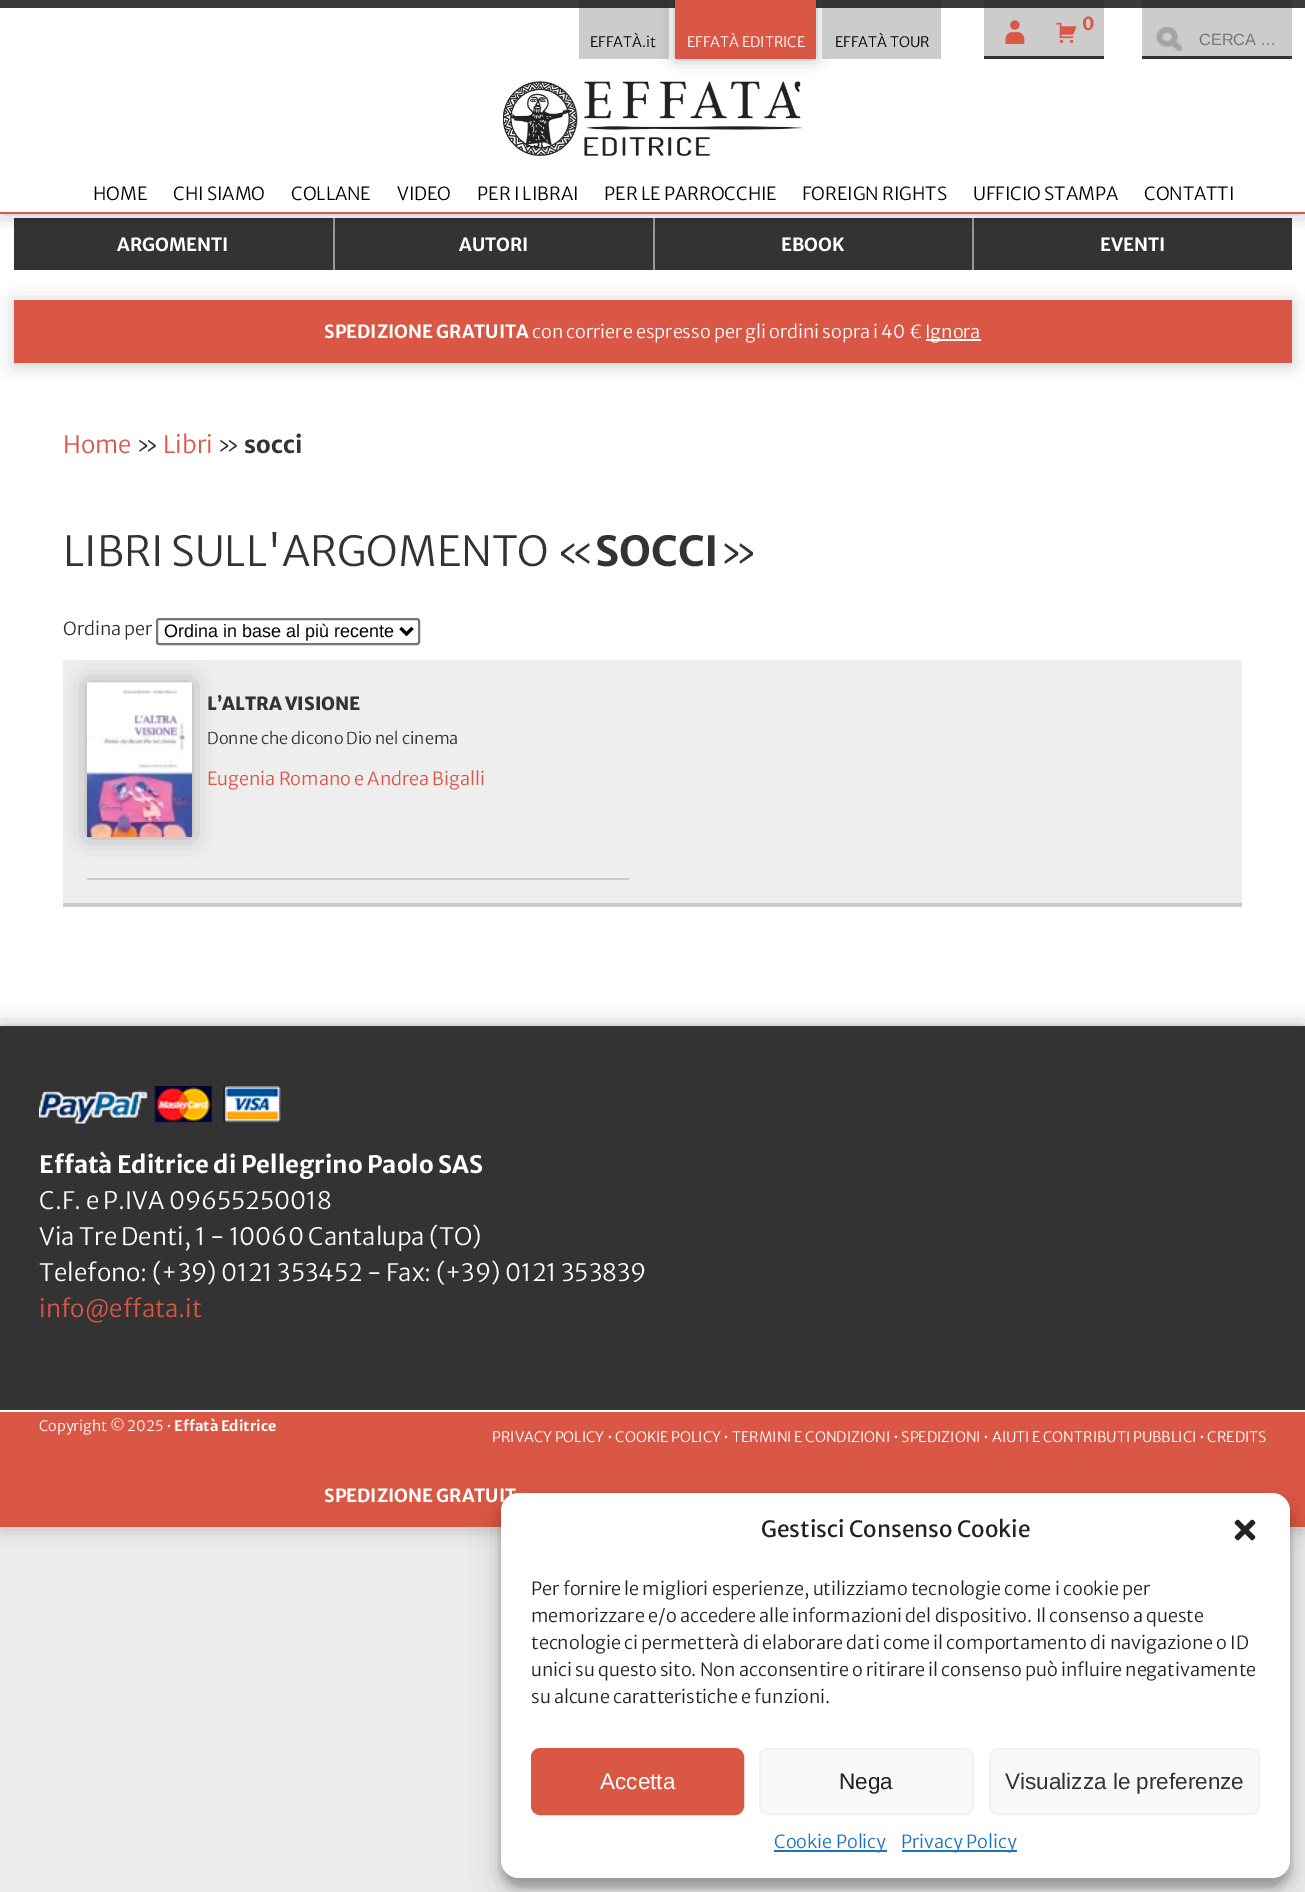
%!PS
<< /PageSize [1305 1892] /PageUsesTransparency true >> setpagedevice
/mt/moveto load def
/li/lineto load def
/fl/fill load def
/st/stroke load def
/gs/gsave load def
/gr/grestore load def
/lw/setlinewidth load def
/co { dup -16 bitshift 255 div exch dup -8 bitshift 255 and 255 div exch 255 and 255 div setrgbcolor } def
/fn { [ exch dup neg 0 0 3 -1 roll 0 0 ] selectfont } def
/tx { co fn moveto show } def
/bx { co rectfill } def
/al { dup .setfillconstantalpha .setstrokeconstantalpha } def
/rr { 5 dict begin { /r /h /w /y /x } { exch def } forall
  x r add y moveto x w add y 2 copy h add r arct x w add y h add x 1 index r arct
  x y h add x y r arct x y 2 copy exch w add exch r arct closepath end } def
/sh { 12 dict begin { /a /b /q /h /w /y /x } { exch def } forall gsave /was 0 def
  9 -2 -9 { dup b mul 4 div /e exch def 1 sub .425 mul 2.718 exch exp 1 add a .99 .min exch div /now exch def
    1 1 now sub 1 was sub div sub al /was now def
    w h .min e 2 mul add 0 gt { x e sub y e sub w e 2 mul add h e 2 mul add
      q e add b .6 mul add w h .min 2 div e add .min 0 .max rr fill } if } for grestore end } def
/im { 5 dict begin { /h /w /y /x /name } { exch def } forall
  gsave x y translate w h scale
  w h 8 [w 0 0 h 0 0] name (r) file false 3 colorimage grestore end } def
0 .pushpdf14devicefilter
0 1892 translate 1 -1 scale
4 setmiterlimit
0 0 1305 1892 16#ECECEC bx
0 8 1305 1018 16#FFFFFF bx
14 218 319 52 16#333333 bx
335 218 318 52 16#333333 bx
333 218 2 52 16#999999 bx
655 218 317 52 16#333333 bx
653 218 2 52 16#999999 bx
974 218 318 52 16#333333 bx
972 218 2 52 16#999999 bx
gs
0 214 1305 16 rectclip
16#000000 co
0 0 1305 213 0 11 .3 sh
gr
0 0 1305 8 16#3B3B3B bx
0 212 1305 2 16#DB5745 bx
984 8 120 48 16#CCCCCC bx
984 0 120 8 16#333333 bx
984 56 120 3 16#333333 bx
(media/1.raw) 1005 20 20 24 im
(media/2.raw) 1056 22 21 22 im
579 8 90 51 16#CCCCCC bx
579 0 90 8 16#333333 bx
16#000000 co
675 0 141 59 0 7.5 .3 sh
675 0 141 59 16#DB5745 bx
822 8 119 51 16#CCCCCC bx
822 0 119 8 16#333333 bx
1142 8 150 48 16#CCCCCC bx
1142 0 150 8 16#333333 bx
1142 56 150 3 16#333333 bx
(media/3.raw) 1156 27 26 24 im
(media/4.raw) 503 81 300 75 im
16#000000 co
14 302 1278 63 0 9 .2 sh
14 300 1278 63 16#DB5745 bx
926 339 55 2 16#FFFFFF bx
16#767676 co
2 lw
157 619 262 25 2 rr st
16#000000 co
3 lw
400.5 628 mt 406.5 634 li 412.5 628 li st
63 660 1179 243 16#EEEEEE bx
63 903 1179 4 16#CCCCCC bx
87 878 542 2 16#CCCCCC bx
16#000000 co
87 683 105 154 0 11 .3 sh
(media/5.raw) 87 682 105 155 im
0 1026 1305 384 0 11 .3 sh
0 1026 1305 384 16#333333 bx
(media/6.raw) 39 1086 242 38 im
0 1410 1305 2 16#FFFFFF bx
16#000000 co
0 1466 1305 63 0 9 .2 sh
0 1412 1305 115 16#DB5745 bx
16#000000 co
501 1502 789 385 18 4.5 .23 sh
501 1508 789 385 18 15 .19 sh
16#FFFFFF co
501 1493 789 385 18 rr fl
(media/7.raw) 1234 1519 22 22 im
16#DB5745 co
532 1749 211 65 8 rr gs fl gr
2 lw
st
16#F9F9F9 co
760 1749 213 65 8 rr gs fl gr
16#F2F2F2 co
st
16#F9F9F9 co
990 1749 269 65 8 rr gs fl gr
16#F2F2F2 co
st
774 1850 113 2 16#1E73BE bx
902 1850 115 2 16#1E73BE bx
(0) 1082 30 /MerriweatherSans-Bold 18 16#DB5745 tx
(EFFATÀ.it) 590 47 /MerriweatherSans-Light 14.4 16#000000 tx
(EFFATÀ EDITRICE) 687 47 /MerriweatherSans-Light 14.4 16#FFFFFF tx
(EFFATÀ TOUR) 835 47 /MerriweatherSans-Light 14.4 16#000000 tx
(CERCA …) 1199 45 /LiberationSans-Regular 16.25 16#757575 tx
(HOME) 93 200 /MerriweatherSans-Light 18 16#000000 tx
(CHI SIAMO) 173 200 /MerriweatherSans-Light 18 16#000000 tx
(COLLANE) 291 200 /MerriweatherSans-Light 18 16#000000 tx
(VIDEO) 397 200 /MerriweatherSans-Light 18 16#000000 tx
(PER I LIBRAI) 477 200 /MerriweatherSans-Light 18 16#000000 tx
(PER LE PARROCCHIE) 604 200 /MerriweatherSans-Light 18 16#000000 tx
(FOREIGN RIGHTS) 802 200 /MerriweatherSans-Light 18 16#000000 tx
(UFFICIO STAMPA) 973 200 /MerriweatherSans-Light 18 16#000000 tx
(CONTATTI) 1144 200 /MerriweatherSans-Light 18 16#000000 tx
(ARGOMENTI) 117 251 /MerriweatherSans-Bold 18 16#FFFFFF tx
(AUTORI) 459 251 /MerriweatherSans-Bold 18 16#FFFFFF tx
(EBOOK) 781 251 /MerriweatherSans-Bold 18 16#FFFFFF tx
(EVENTI) 1100 251 /MerriweatherSans-Bold 18 16#FFFFFF tx
(SPEDIZIONE GRATUITA) 324 338 /MerriweatherSans-Bold 18 16#FFFFFF tx
(con corriere espresso per gli ordini sopra i 40 €) 532 338 /MerriweatherSans-Light 18 16#FFFFFF tx
(Ignora) 925 338 /MerriweatherSans-Light 18 16#FFFFFF tx
(Home) 63 453 /MerriweatherSans-Light 24 16#DB5745 tx
(») 136 453 /MerriweatherSans-Light 24 16#333333 tx
(Libri) 163 453 /MerriweatherSans-Light 24 16#DB5745 tx
(») 217 453 /MerriweatherSans-Light 24 16#333333 tx
(socci) 244 453 /MerriweatherSans-Bold 24 16#333333 tx
(LIBRI SULL'ARGOMENTO «) 63 566 /MerriweatherSans-Light 41.4 16#333333 tx
(SOCCI) 595 566 /MerriweatherSans-Bold 41.4 16#333333 tx
(») 719 566 /MerriweatherSans-Light 41.4 16#333333 tx
(Ordina per) 63 635 /MerriweatherSans-Light 18 16#333333 tx
(Ordina in base al più recente) 164 637 /LiberationSans-Regular 18 16#000000 tx
(L’ALTRA VISIONE) 207 710 /MerriweatherSans-ExtraBold 18 16#333333 tx
(Donne che dicono Dio nel cinema) 207 744 /MerriweatherSans-Light 16.25 16#333333 tx
(Eugenia Romano e Andrea Bigalli) 207 785 /MerriweatherSans-Light 18 16#DB5745 tx
(Effatà Editrice di Pellegrino Paolo SAS) 39 1173 /MerriweatherSans-Bold 24 16#FFFFFF tx
(C.F. e P.IVA 09655250018) 39 1209 /MerriweatherSans-Light 24 16#FFFFFF tx
(Via Tre Denti, 1 - 10060 Cantalupa \(TO\)) 39 1245 /MerriweatherSans-Light 24 16#FFFFFF tx
(Telefono: \(+39\) 0121 353452 - Fax: \(+39\) 0121 353839) 39 1281 /MerriweatherSans-Light 24 16#FFFFFF tx
(info@effata.it) 39 1317 /MerriweatherSans-Light 24 16#DB5745 tx
(Copyright © 2025 •) 39 1431 /MerriweatherSans-Light 14.4 16#FFFFFF tx
(Effatà Editrice) 174 1431 /MerriweatherSans-Bold 14.4 16#FFFFFF tx
(PRIVACY POLICY • COOKIE POLICY • TERMINI E CONDIZIONI • SPEDIZIONI • AIUTI E CONTRIBUTI PUBBLICI • CREDITS) 492 1442 /MerriweatherSans-Light 14.4 16#FFFFFF tx
(SPEDIZIONE GRATUIT) 324 1502 /MerriweatherSans-Bold 18 16#FFFFFF tx
(Gestisci Consenso Cookie) 761 1537 /MerriweatherSans-Regular 22.5 16#222222 tx
(Per fornire le migliori esperienze, utilizziamo tecnologie come i cookie per) 531 1595 /MerriweatherSans-Light 18 16#222222 tx
(memorizzare e/o accedere alle informazioni del dispositivo. Il consenso a queste) 531 1622 /MerriweatherSans-Light 18 16#222222 tx
(tecnologie ci permetterà di elaborare dati come il comportamento di navigazione o ID) 531 1649 /MerriweatherSans-Light 18 16#222222 tx
(unici su questo sito. Non acconsentire o ritirare il consenso può influire negativamente) 531 1676 /MerriweatherSans-Light 18 16#222222 tx
(su alcune caratteristiche e funzioni.) 531 1703 /MerriweatherSans-Light 18 16#222222 tx
(Accetta) 600 1789 /LiberationSans-Regular 22.5 16#FFFFFF tx
(Nega) 839 1789 /LiberationSans-Regular 22.5 16#222222 tx
(Visualizza le preferenze) 1005 1789 /LiberationSans-Regular 22.5 16#333333 tx
(Cookie Policy) 774 1848 /MerriweatherSans-Light 18 16#1E73BE tx
(Privacy Policy) 901 1848 /MerriweatherSans-Light 18 16#1E73BE tx
.poppdf14devicefilter showpage
